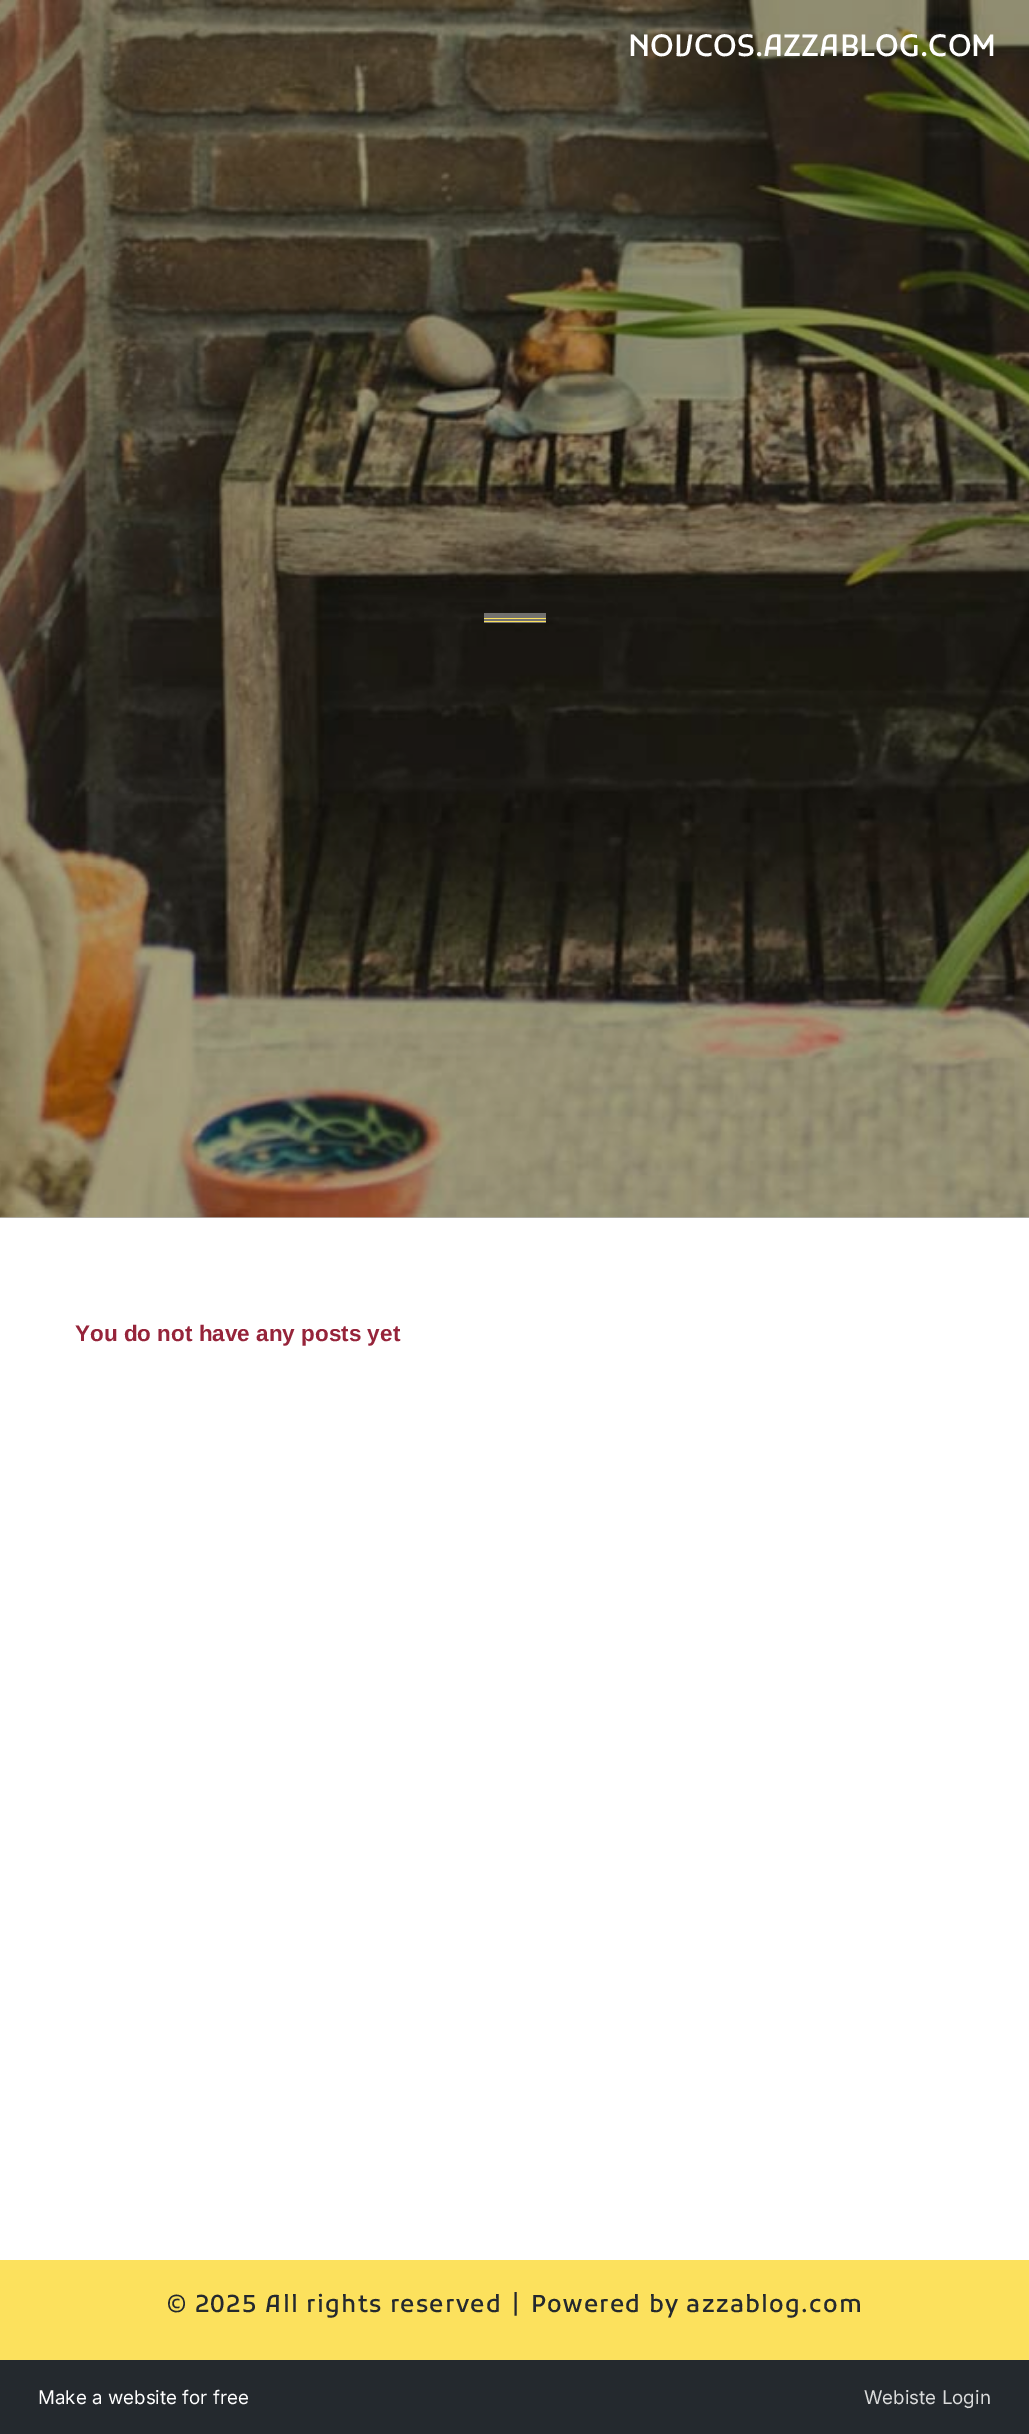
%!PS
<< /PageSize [1029 2434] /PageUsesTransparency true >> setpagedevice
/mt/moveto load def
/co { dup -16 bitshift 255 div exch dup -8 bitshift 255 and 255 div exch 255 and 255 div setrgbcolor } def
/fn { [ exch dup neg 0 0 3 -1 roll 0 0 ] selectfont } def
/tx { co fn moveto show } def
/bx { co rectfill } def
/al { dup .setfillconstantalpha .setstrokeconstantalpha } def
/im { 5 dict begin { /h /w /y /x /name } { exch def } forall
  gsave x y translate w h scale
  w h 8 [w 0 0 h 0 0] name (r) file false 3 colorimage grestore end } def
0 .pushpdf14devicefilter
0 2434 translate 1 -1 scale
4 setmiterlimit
0 0 1029 2434 16#FFFFFF bx
0 1217 1029 1 16#B3B3B3 bx
(media/1.raw) 0 0 1029 1218 im
0.4 al
484 613 62 10 16#F7F7F7 bx
1 al
484 618 62 1 16#FCE15D bx
484 621 62 1 16#FCE15D bx
0 2260 1029 100 16#FCE15D bx
0 2360 1029 74 16#24292E bx
(NOVCOS.AZZABLOG.COM) 628 56 /Kufam-Medium 30 16#FFFFFF tx
(You do not have any posts yet) 75 1341 /LiberationSans-Bold 22.5 16#96243A tx
/Kufam-Medium 23.75 fn
16#24292E co
167 2312 mt 1.25 0 (© 2025 All rights reserved) ashow
512 2310 mt 1.25 0 (|) ashow
531 2312 mt 1.25 0 (Powered by azzablog.com) ashow
(Make a website for free) 38 2404 /Inter-Regular 18.75 16#FFFFFF tx
(Webiste Login) 864 2404 /Inter-Regular 18.75 16#DADBDB tx
.poppdf14devicefilter showpage
